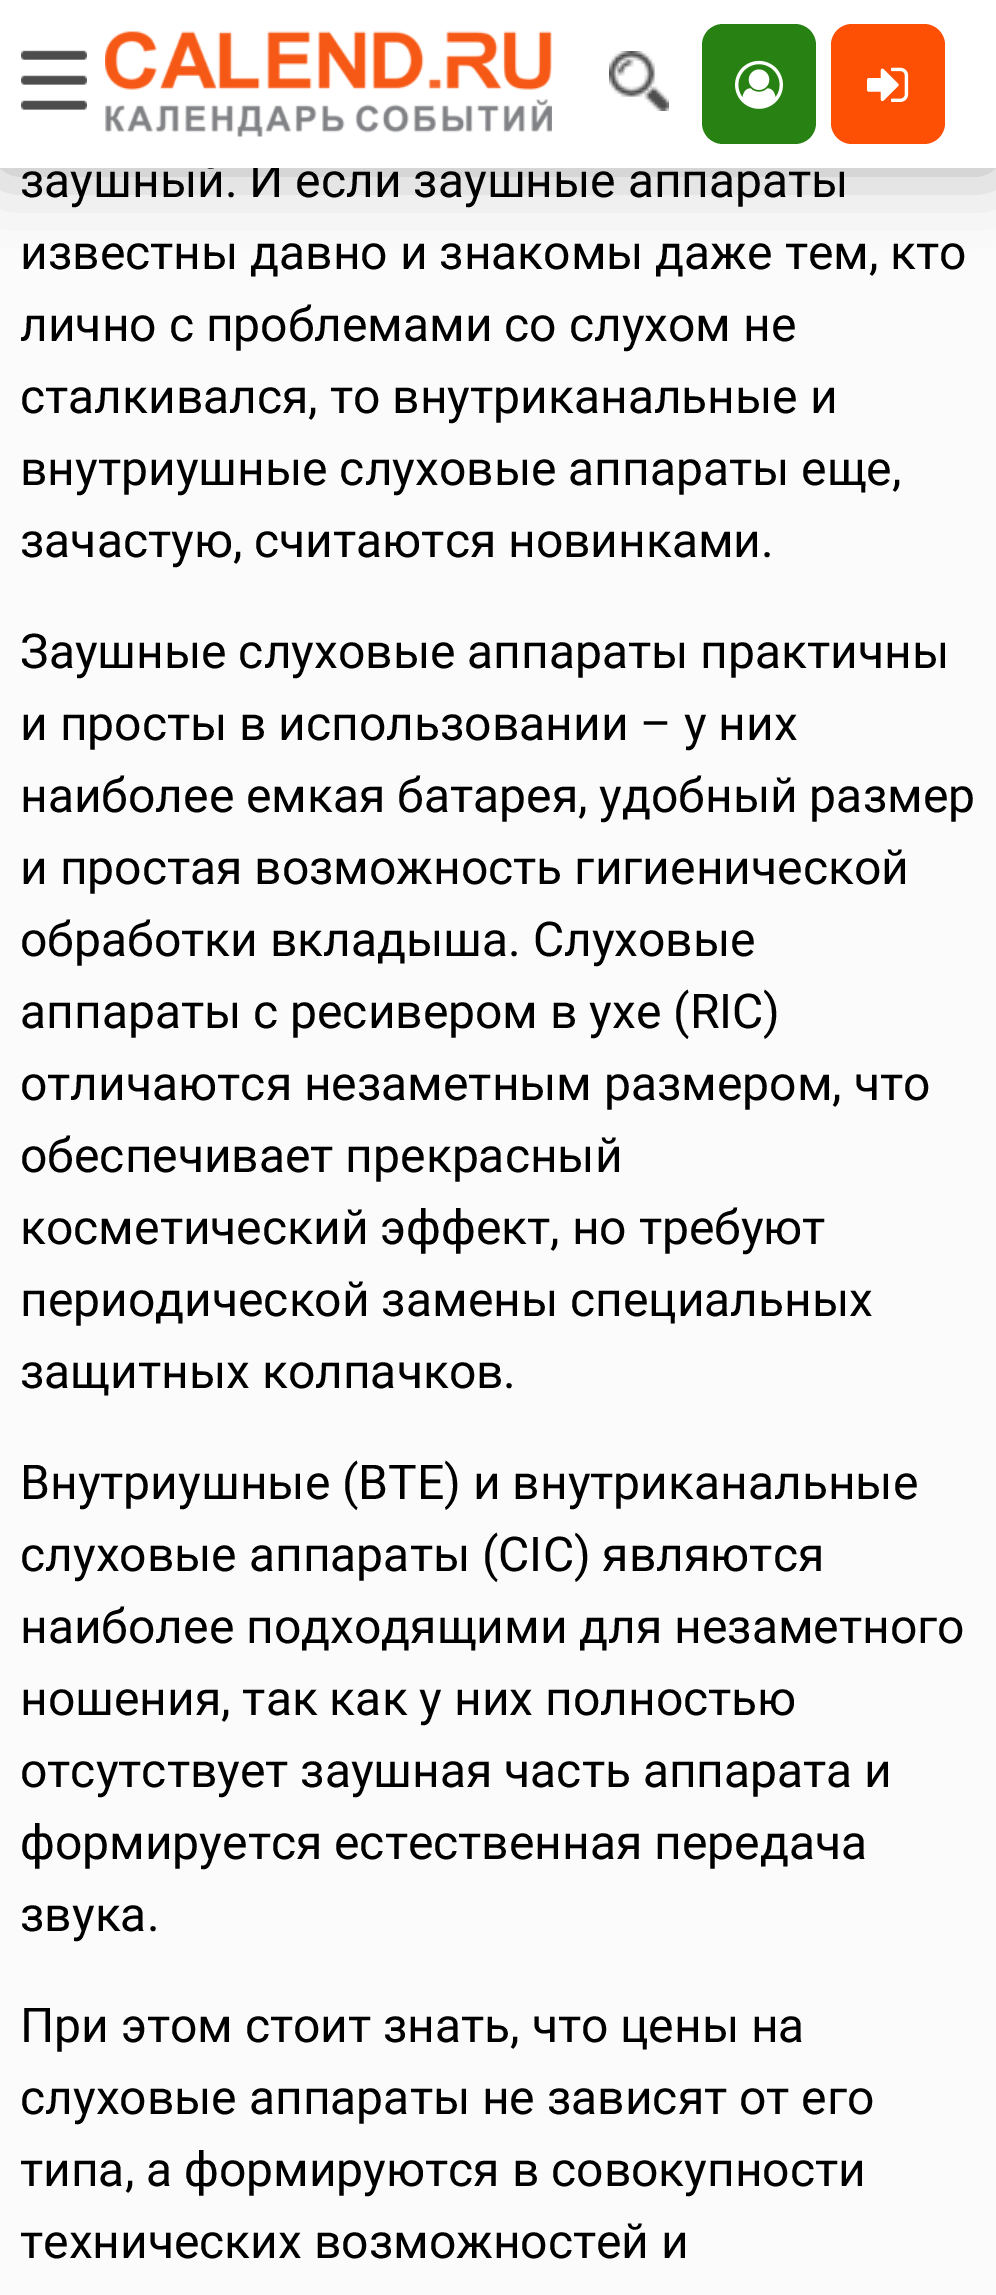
%!PS
<< /PageSize [996 2295] /PageUsesTransparency true >> setpagedevice
/fl/fill load def
/co { dup -16 bitshift 255 div exch dup -8 bitshift 255 and 255 div exch 255 and 255 div setrgbcolor } def
/fn { [ exch dup neg 0 0 3 -1 roll 0 0 ] selectfont } def
/tx { co fn moveto show } def
/bx { co rectfill } def
/al { dup .setfillconstantalpha .setstrokeconstantalpha } def
/rr { 5 dict begin { /r /h /w /y /x } { exch def } forall
  x r add y moveto x w add y 2 copy h add r arct x w add y h add x 1 index r arct
  x y h add x y r arct x y 2 copy exch w add exch r arct closepath end } def
/sh { 12 dict begin { /a /b /q /h /w /y /x } { exch def } forall gsave /was 0 def
  9 -2 -9 { dup b mul 4 div /e exch def 1 sub .425 mul 2.718 exch exp 1 add a .99 .min exch div /now exch def
    1 1 now sub 1 was sub div sub al /was now def
    w h .min e 2 mul add 0 gt { x e sub y e sub w e 2 mul add h e 2 mul add
      q e add b .6 mul add w h .min 2 div e add .min 0 .max rr fill } if } for grestore end } def
/im { 5 dict begin { /h /w /y /x /name } { exch def } forall
  gsave x y translate w h scale
  w h 8 [w 0 0 h 0 0] name (r) file false 3 colorimage grestore end } def
0 .pushpdf14devicefilter
0 2295 translate 1 -1 scale
4 setmiterlimit
0 0 996 2295 16#FBFBFB bx
16#000000 co
0 0 996 168 0 36 .3 sh
(заушный. И если заушные аппараты) 20 197 /Roboto-Regular 48 16#000000 tx
0 0 996 168 16#FFFFFF bx
(media/1.raw) 21 50 66 60 im
16#FE5004 co
831 24 114 120 21 rr fl
(media/5.raw) 867 67 42 35 im
16#288213 co
702 24 114 120 21 rr fl
(media/4.raw) 735 60 48 49 im
(media/3.raw) 609 51 60 60 im
(media/2.raw) 105 31 447 106 im
(известны давно и знакомы даже тем, кто) 20 269 /Roboto-Regular 48 16#000000 tx
(лично с проблемами со слухом не) 20 341 /Roboto-Regular 48 16#000000 tx
(сталкивался, то внутриканальные и) 20 413 /Roboto-Regular 48 16#000000 tx
(внутриушные слуховые аппараты еще,) 20 485 /Roboto-Regular 48 16#000000 tx
(зачастую, считаются новинками.) 20 557 /Roboto-Regular 48 16#000000 tx
(Заушные слуховые аппараты практичны) 20 668 /Roboto-Regular 48 16#000000 tx
(и просты в использовании – у них) 20 740 /Roboto-Regular 48 16#000000 tx
(наиболее емкая батарея, удобный размер) 20 812 /Roboto-Regular 48 16#000000 tx
(и простая возможность гигиенической) 20 884 /Roboto-Regular 48 16#000000 tx
(обработки вкладыша. Слуховые) 20 956 /Roboto-Regular 48 16#000000 tx
(аппараты с ресивером в ухе \(RIC\)) 20 1028 /Roboto-Regular 48 16#000000 tx
(отличаются незаметным размером, что) 20 1100 /Roboto-Regular 48 16#000000 tx
(обеспечивает прекрасный) 20 1172 /Roboto-Regular 48 16#000000 tx
(косметический эффект, но требуют) 20 1244 /Roboto-Regular 48 16#000000 tx
(периодической замены специальных) 20 1316 /Roboto-Regular 48 16#000000 tx
(защитных колпачков.) 20 1388 /Roboto-Regular 48 16#000000 tx
(Внутриушные \(BTE\) и внутриканальные) 20 1499 /Roboto-Regular 48 16#000000 tx
(слуховые аппараты \(CIC\) являются) 20 1571 /Roboto-Regular 48 16#000000 tx
(наиболее подходящими для незаметного) 20 1643 /Roboto-Regular 48 16#000000 tx
(ношения, так как у них полностью) 20 1715 /Roboto-Regular 48 16#000000 tx
(отсутствует заушная часть аппарата и) 20 1787 /Roboto-Regular 48 16#000000 tx
(формируется естественная передача) 20 1859 /Roboto-Regular 48 16#000000 tx
(звука.) 20 1931 /Roboto-Regular 48 16#000000 tx
(При этом стоит знать, что цены на) 20 2042 /Roboto-Regular 48 16#000000 tx
(слуховые аппараты не зависят от его) 20 2114 /Roboto-Regular 48 16#000000 tx
(типа, а формируются в совокупности) 20 2186 /Roboto-Regular 48 16#000000 tx
(технических возможностей и) 20 2258 /Roboto-Regular 48 16#000000 tx
.poppdf14devicefilter showpage
